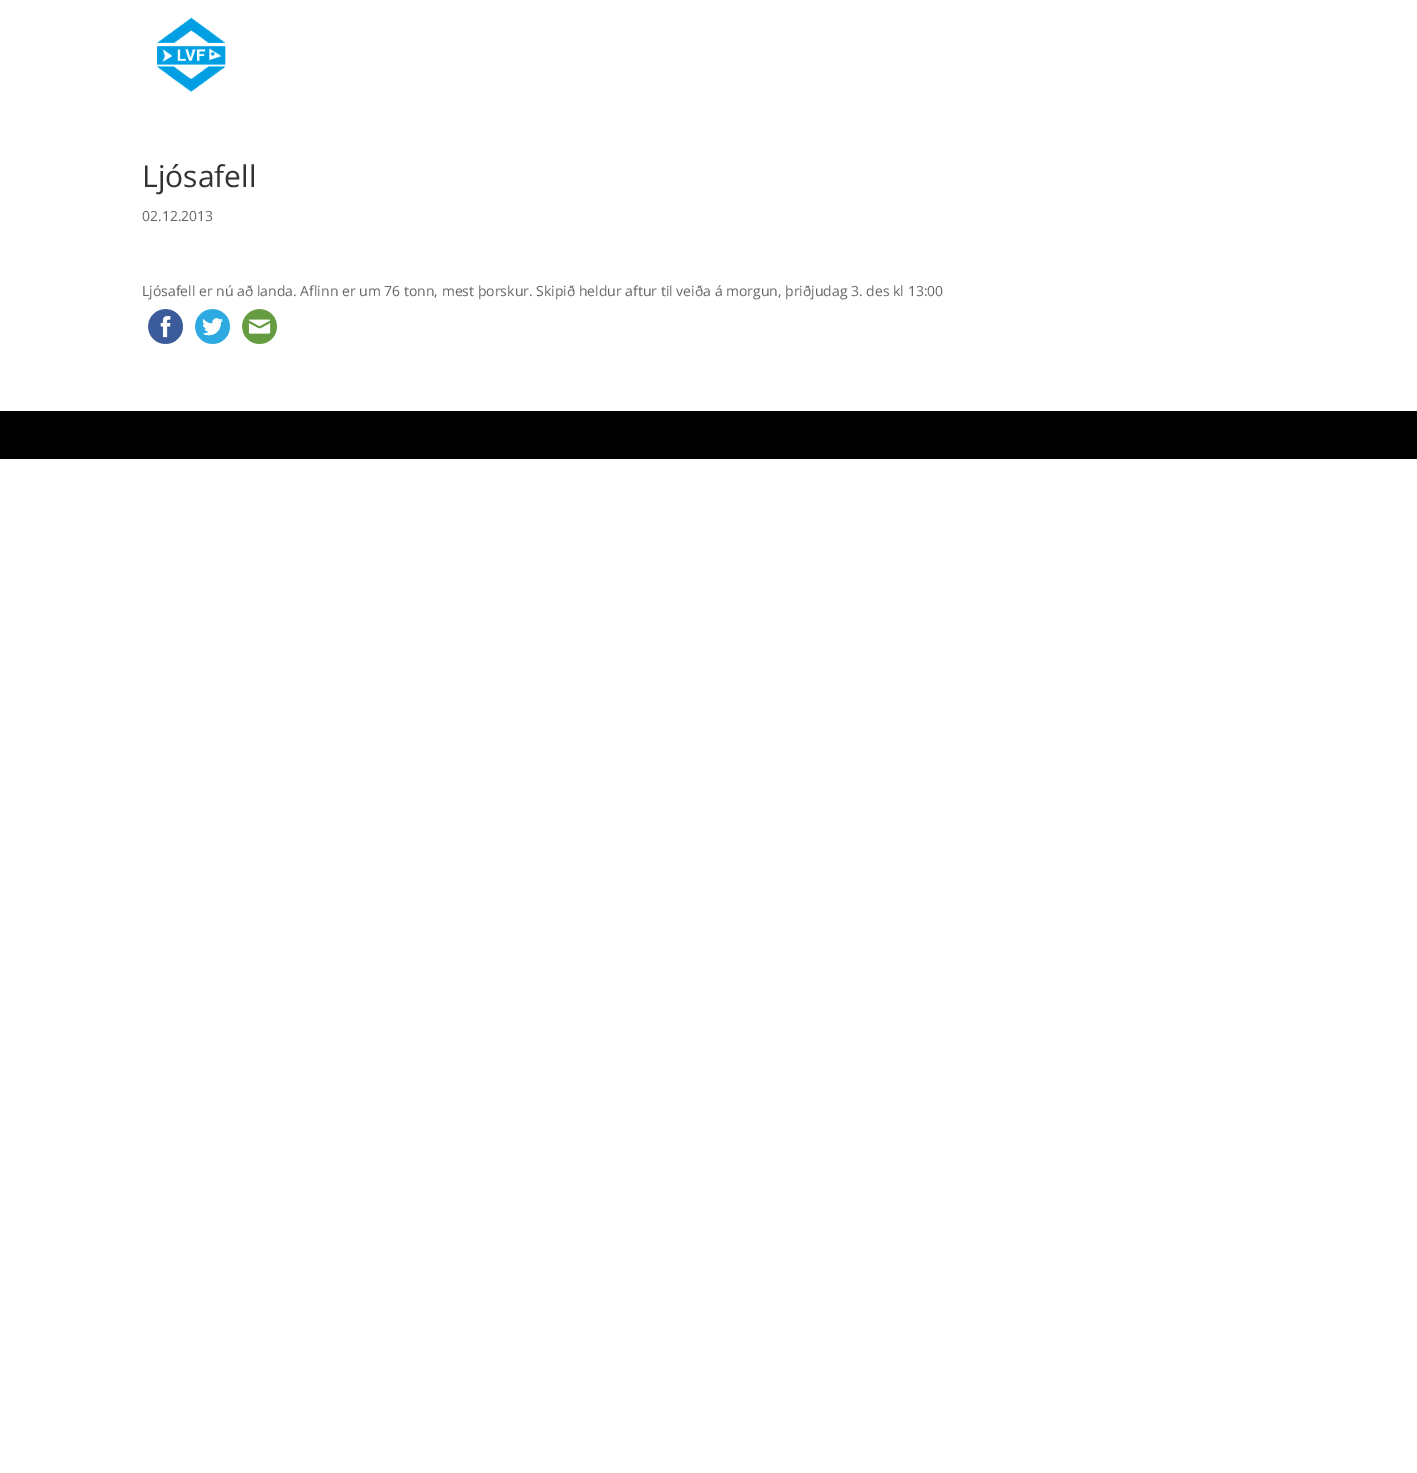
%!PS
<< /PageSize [1417 1473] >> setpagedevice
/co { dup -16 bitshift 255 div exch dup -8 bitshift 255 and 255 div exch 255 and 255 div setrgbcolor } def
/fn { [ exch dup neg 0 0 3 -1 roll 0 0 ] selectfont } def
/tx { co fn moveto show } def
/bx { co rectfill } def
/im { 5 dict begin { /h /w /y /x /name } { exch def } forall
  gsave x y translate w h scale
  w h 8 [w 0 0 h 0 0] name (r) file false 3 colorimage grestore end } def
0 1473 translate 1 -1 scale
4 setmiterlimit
0 0 1417 1473 16#FFFFFF bx
(media/1.raw) 157 17 69 75 im
(media/2.raw) 148 309 35 35 im
(media/3.raw) 195 309 35 35 im
(media/4.raw) 242 309 35 35 im
0 411 1417 48 16#000000 bx
(Ljósafell) 142 187 /OpenSans-Regular 30 16#333333 tx
(02.12.2013) 142 221 /OpenSans-Regular 14 16#666666 tx
(Ljósafell er nú að landa. Aflinn er um 76 tonn, mest þorskur. Skipið heldur aftur til veiða á morgun, þriðjudag 3. des kl 13:00) 142 296 /OpenSans-Regular 14 16#666666 tx
showpage
